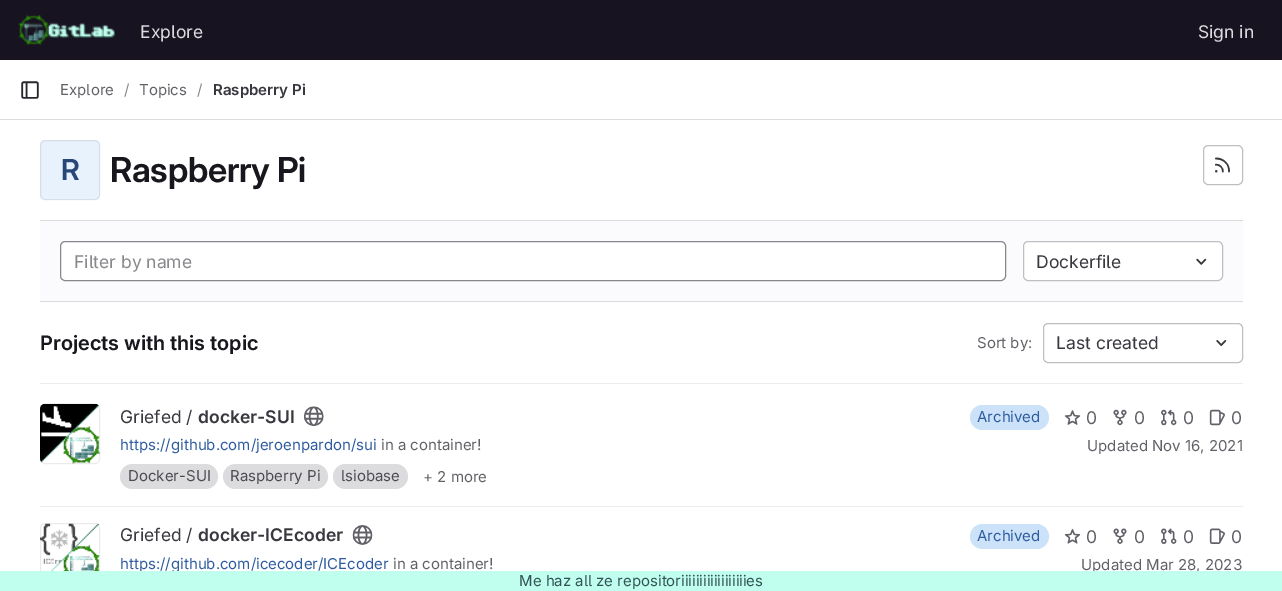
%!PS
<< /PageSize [1282 591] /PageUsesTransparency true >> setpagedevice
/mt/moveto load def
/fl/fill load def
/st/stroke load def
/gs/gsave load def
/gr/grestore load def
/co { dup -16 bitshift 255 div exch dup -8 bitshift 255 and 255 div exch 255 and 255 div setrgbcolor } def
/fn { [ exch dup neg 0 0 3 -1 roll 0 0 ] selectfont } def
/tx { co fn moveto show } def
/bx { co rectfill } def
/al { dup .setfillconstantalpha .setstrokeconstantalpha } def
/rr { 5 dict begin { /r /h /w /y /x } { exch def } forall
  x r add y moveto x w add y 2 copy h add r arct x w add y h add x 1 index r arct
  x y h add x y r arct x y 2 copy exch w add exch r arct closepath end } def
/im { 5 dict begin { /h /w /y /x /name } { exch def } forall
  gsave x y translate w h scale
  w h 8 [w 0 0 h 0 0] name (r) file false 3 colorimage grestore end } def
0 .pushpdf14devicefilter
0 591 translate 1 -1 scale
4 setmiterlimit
0 0 1282 591 16#FFFFFF bx
0 0 1282 60 16#171321 bx
(media/1.raw) 18 15 97 30 im
0 119 1282 1 16#DCDCDE bx
(media/2.raw) 21 81 18 18 im
16#E7F2FC co
40 140 60 60 5 rr fl
0.08 al
16#050506 co
40.5 140.5 59 59 4.5 rr st
1 al
16#BFBFC3 co
1203.5 145.5 39 39 4.5 rr st
(media/3.raw) 1215 157 15 16 im
40 221 1203 82 16#FBFAFD bx
40 220 1203 1 16#DCDCDE bx
40 301 1203 1 16#DCDCDE bx
16#FFFFFF co
60.5 241.5 945 39 4.5 rr gs fl gr
16#89888D co
st
16#FFFFFF co
1023.5 241.5 199 39 4.5 rr gs fl gr
16#BFBFC3 co
st
(media/4.raw) 1196 258 11 7 im
40 383 1203 1 16#ECECEF bx
16#BFBFC3 co
1043.5 323.5 199 39 4.5 rr st
(media/5.raw) 1216 340 11 6 im
40 506 1203 1 16#ECECEF bx
(media/6.raw) 40 403 60 61 im
0.08 al
16#050506 co
40.5 404.5 59 59 4.5 rr st
1 al
(media/7.raw) 303 406 21 21 im
16#DCDCDE co
120 464 98 25 12.5 rr fl
223 464 105 25 12.5 rr fl
333 464 75 25 12.5 rr fl
16#CBE2F9 co
970 405 79 25 12.5 rr fl
(media/8.raw) 1064 410 17 15 im
(media/9.raw) 1113 409 14 17 im
(media/10.raw) 1161 409 16 17 im
(media/11.raw) 1209 409 16 17 im
(media/12.raw) 40 523 60 48 im
0.08 al
16#050506 co
40.5 523.5 59 59 4.5 rr st
1 al
(media/13.raw) 352 525 21 20 im
16#CBE2F9 co
970 524 79 25 12.5 rr fl
(media/14.raw) 1064 529 17 15 im
(media/15.raw) 1113 528 14 16 im
(media/16.raw) 1161 528 16 16 im
(media/17.raw) 1209 528 16 16 im
(Explore) 140 38 /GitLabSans-Regular 17.5 16#DCDCDE tx
(Sign in) 1198 38 /GitLabSans-Regular 17.5 16#DCDCDE tx
(Explore) 60 95 /GitLabSans-Regular 15 16#626168 tx
(/) 124 95 /GitLabSans-Regular 15 16#89888D tx
(Topics) 139 95 /GitLabSans-Regular 15 16#626168 tx
(/) 197 95 /GitLabSans-Regular 15 16#89888D tx
(Raspberry Pi) 213 95 /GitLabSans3-SemiBold 15 16#3A383F tx
/GitLabSans-SemiBold 29 fn
16#284779 co
61 180 mt -.3 0 (R) ashow
/GitLabSans-SemiBold 34.5 fn
16#18171D co
110 182 mt -.3 0 (Raspberry Pi) ashow
(Filter by name) 74 268 /GitLabSans-Regular 17.5 16#89888D tx
(Dockerfile) 1036 268 /GitLabSans-Regular 17.5 16#3A383F tx
(Projects with this topic) 40 350 /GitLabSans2-SemiBold 20 16#18171D tx
(Sort by:) 977 348 /GitLabSans-Regular 15 16#626168 tx
(Last created) 1056 349 /GitLabSans-Regular 17.5 16#3A383F tx
(Griefed /) 120 423 /GitLabSans-Regular 17.5 16#3A383F tx
(docker-SUI) 198 423 /GitLabSans3-SemiBold 17.5 16#3A383F tx
(https://github.com/jeroenpardon/sui) 120 450 /GitLabSans-Regular 15 16#2F5CA0 tx
(in a container!) 381 450 /GitLabSans-Regular 15 16#626168 tx
(Docker-SUI) 128 481 /GitLabSans-Regular 15 16#4C4B51 tx
(Raspberry Pi) 230 481 /GitLabSans-Regular 15 16#4C4B51 tx
(lsiobase) 341 481 /GitLabSans-Regular 15 16#4C4B51 tx
(+ 2 more) 423 482 /GitLabSans-Regular 15 16#626168 tx
(Archived) 977 422 /GitLabSans-Regular 15 16#2F5CA0 tx
(0) 1086 424 /GitLabSans-Regular 17.5 16#626168 tx
(0) 1134 424 /GitLabSans-Regular 17.5 16#626168 tx
(0) 1183 424 /GitLabSans-Regular 17.5 16#626168 tx
(0) 1231 424 /GitLabSans-Regular 17.5 16#626168 tx
(Updated Nov 16, 2021) 1087 451 /GitLabSans-Regular 15 16#626168 tx
(Griefed /) 120 541 /GitLabSans-Regular 17.5 16#3A383F tx
(docker-ICEcoder) 198 541 /GitLabSans3-SemiBold 17.5 16#3A383F tx
(https://github.com/icecoder/ICEcoder) 120 569 /GitLabSans-Regular 15 16#2F5CA0 tx
(in a container!) 393 569 /GitLabSans-Regular 15 16#626168 tx
(Archived) 977 541 /GitLabSans-Regular 15 16#2F5CA0 tx
(0) 1086 543 /GitLabSans-Regular 17.5 16#626168 tx
(0) 1134 543 /GitLabSans-Regular 17.5 16#626168 tx
(0) 1183 543 /GitLabSans-Regular 17.5 16#626168 tx
(0) 1231 543 /GitLabSans-Regular 17.5 16#626168 tx
(Updated Mar 28, 2023) 1081 570 /GitLabSans-Regular 15 16#626168 tx
0 571 1282 20 16#C0FFEE bx
(Me haz all ze repositoriiiiiiiiiiiiiiiiiies) 519 586 /GitLabSans-Regular 15 16#325358 tx
.poppdf14devicefilter showpage
